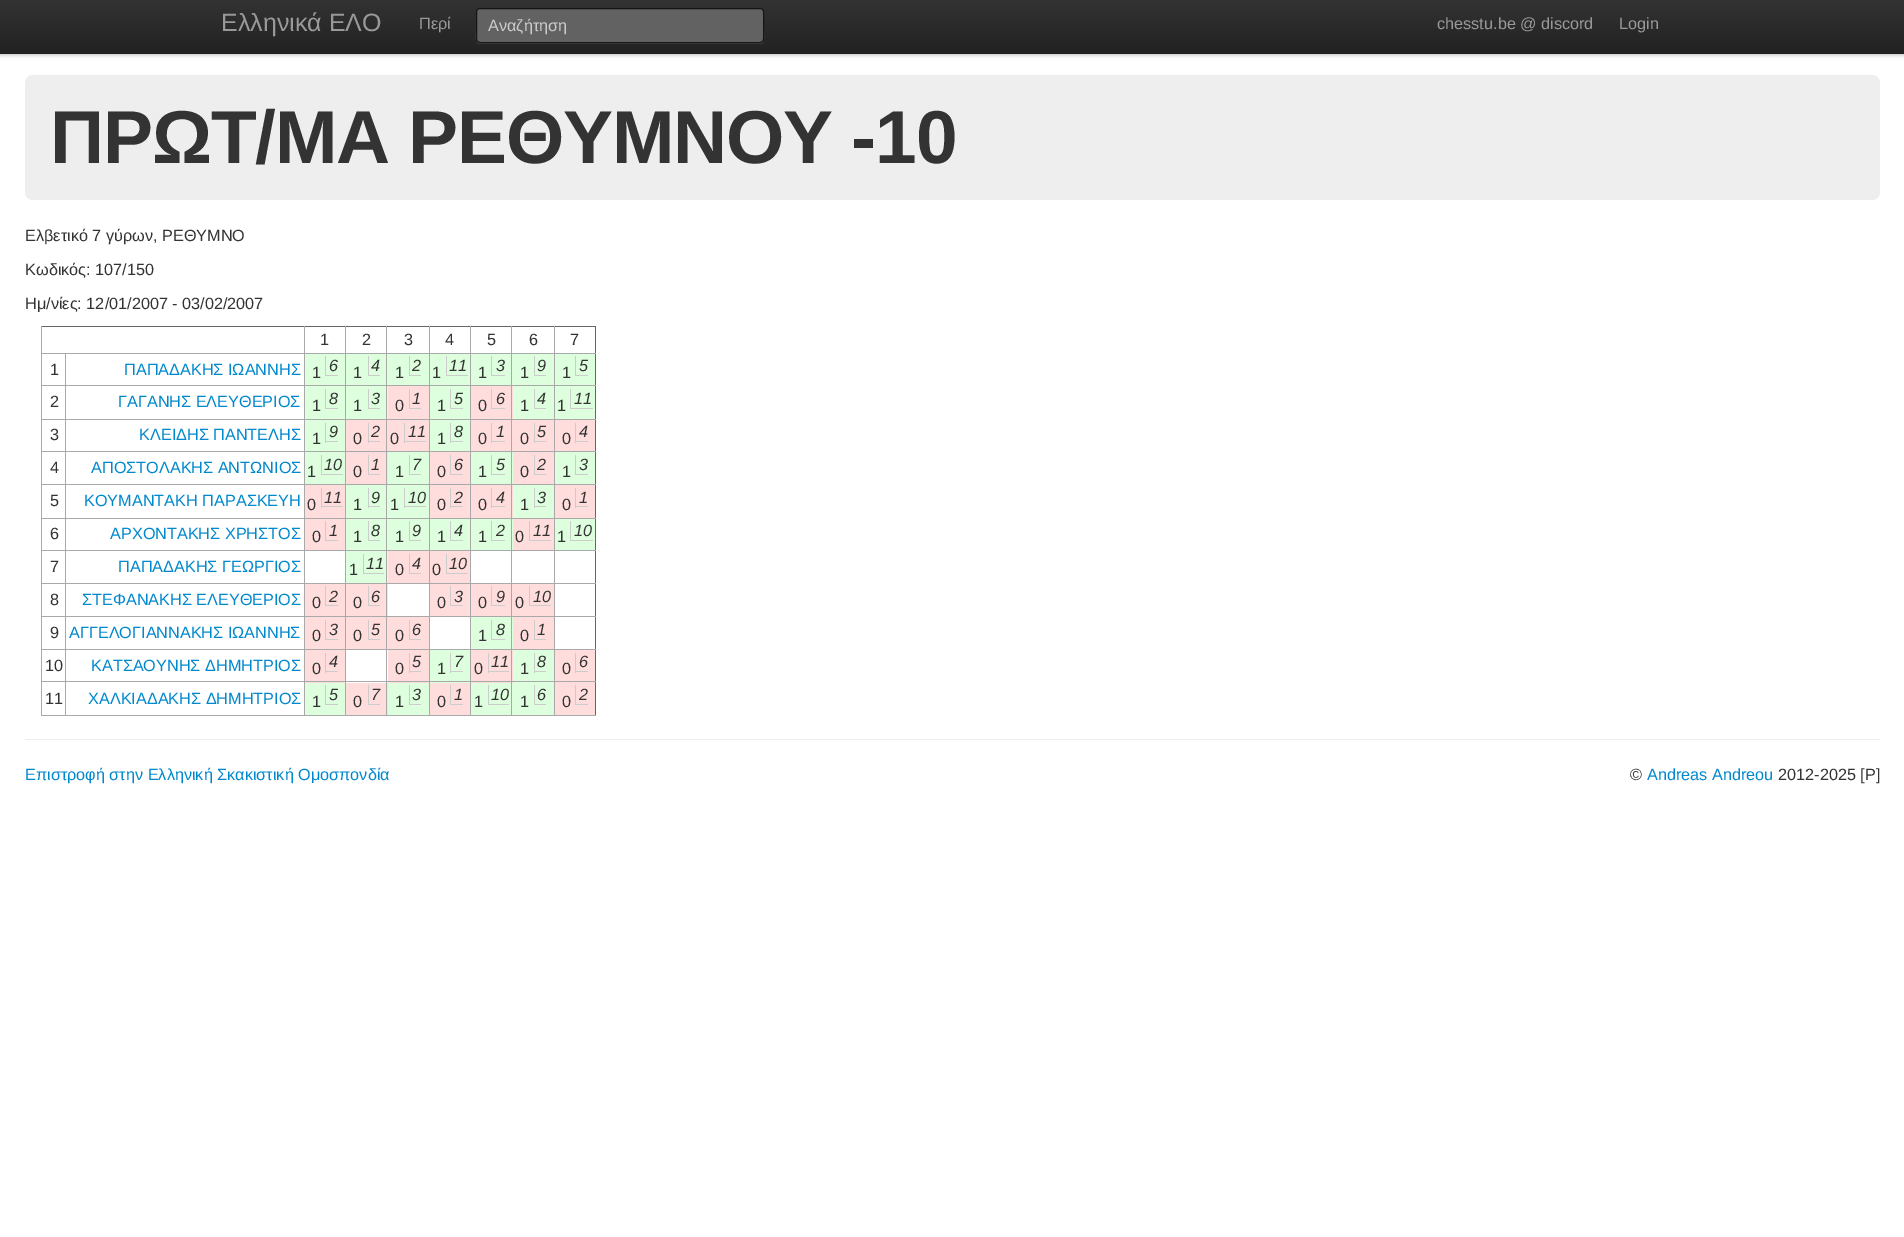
%!PS
<< /PageSize [1904 1237] /PageUsesTransparency true >> setpagedevice
/mt/moveto load def
/li/lineto load def
/ct/curveto load def
/cp/closepath load def
/fl/fill load def
/st/stroke load def
/gs/gsave load def
/gr/grestore load def
/co { dup -16 bitshift 255 div exch dup -8 bitshift 255 and 255 div exch 255 and 255 div setrgbcolor } def
/fn { [ exch dup neg 0 0 3 -1 roll 0 0 ] selectfont } def
/tx { co fn moveto show } def
/bx { co rectfill } def
/al { dup .setfillconstantalpha .setstrokeconstantalpha } def
/rr { 5 dict begin { /r /h /w /y /x } { exch def } forall
  x r add y moveto x w add y 2 copy h add r arct x w add y h add x 1 index r arct
  x y h add x y r arct x y 2 copy exch w add exch r arct closepath end } def
/sh { 12 dict begin { /a /b /q /h /w /y /x } { exch def } forall gsave /was 0 def
  9 -2 -9 { dup b mul 4 div /e exch def 1 sub .425 mul 2.718 exch exp 1 add a .99 .min exch div /now exch def
    1 1 now sub 1 was sub div sub al /was now def
    w h .min e 2 mul add 0 gt { x e sub y e sub w e 2 mul add h e 2 mul add
      q e add b .6 mul add w h .min 2 div e add .min 0 .max rr fill } if } for grestore end } def
0 .pushpdf14devicefilter
0 1237 translate 1 -1 scale
4 setmiterlimit
0 0 1904 1237 16#FFFFFF bx
16#000000 co
0 1 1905 54 0 2 .25 sh
gs 0 0 mt 1904 0 li 1904 53 li 0 53 li cp clip newpath
<< /ShadingType 2 /ColorSpace /DeviceRGB /Coords [953 0 953 54] /Extend [true true] /Function << /FunctionType 2 /Domain [0 1] /C0 [.2 .2 .2] /C1 [.133 .133 .133] /N 1 >> >> shfill gr
0 53 1904 1 16#1F1F1F bx
16#464646 co
476 12 mt 476 31 li 476 34 474 44 480 44 ct 760 44 li 766 44 764 34 764 31 ct 764 12 li 764 39 li 764 41 762 42 760 42 ct 480 42 li 478 42 476 41 476 39 ct cp fl
16#626262 co
476.5 8.5 287 34 3.5 rr gs fl gr
16#151515 co
st
16#EEEEEE co
25 75 1855 125 8 rr fl
41 326 555 1 16#666666 bx
595 326 1 390 16#666666 bx
555 650 40 65 16#FFDDDD bx
554 715 42 1 16#A9A9A9 bx
554 681 1 35 16#A9A9A9 bx
554 681 42 1 16#A9A9A9 bx
554 649 1 34 16#A9A9A9 bx
554 649 42 1 16#A9A9A9 bx
554 616 1 34 16#A9A9A9 bx
554 616 42 1 16#A9A9A9 bx
554 583 1 35 16#A9A9A9 bx
554 583 42 1 16#A9A9A9 bx
554 550 1 34 16#A9A9A9 bx
554 550 42 1 16#A9A9A9 bx
554 518 1 33 16#A9A9A9 bx
554 518 42 1 16#A9A9A9 bx
554 484 1 35 16#A9A9A9 bx
554 484 42 1 16#A9A9A9 bx
554 451 1 34 16#A9A9A9 bx
554 451 42 1 16#A9A9A9 bx
554 419 1 34 16#A9A9A9 bx
554 419 42 1 16#A9A9A9 bx
554 385 1 35 16#A9A9A9 bx
554 385 42 1 16#A9A9A9 bx
554 353 1 33 16#A9A9A9 bx
554 353 42 1 16#A9A9A9 bx
554 326 1 28 16#A9A9A9 bx
471 354 83 31 16#DDFFDD bx
471 386 42 33 16#FFDDDD bx
471 420 83 31 16#FFDDDD bx
471 452 42 32 16#DDFFDD bx
471 485 42 33 16#FFDDDD bx
471 519 42 31 16#DDFFDD bx
471 584 83 32 16#FFDDDD bx
471 617 42 32 16#DDFFDD bx
471 650 42 33 16#FFDDDD bx
513 650 41 33 16#DDFFDD bx
471 683 83 32 16#DDFFDD bx
511 715 44 1 16#A9A9A9 bx
511 681 1 35 16#A9A9A9 bx
511 681 44 1 16#A9A9A9 bx
511 649 1 34 16#A9A9A9 bx
511 649 44 1 16#A9A9A9 bx
511 616 1 34 16#A9A9A9 bx
511 616 44 1 16#A9A9A9 bx
511 583 1 35 16#A9A9A9 bx
511 583 44 1 16#A9A9A9 bx
511 550 1 34 16#A9A9A9 bx
511 550 44 1 16#A9A9A9 bx
511 518 1 33 16#A9A9A9 bx
511 518 44 1 16#A9A9A9 bx
511 484 1 35 16#A9A9A9 bx
511 484 44 1 16#A9A9A9 bx
511 451 1 34 16#A9A9A9 bx
511 451 44 1 16#A9A9A9 bx
511 419 1 34 16#A9A9A9 bx
511 419 44 1 16#A9A9A9 bx
511 385 1 35 16#A9A9A9 bx
511 385 44 1 16#A9A9A9 bx
511 353 1 33 16#A9A9A9 bx
511 353 44 1 16#A9A9A9 bx
511 326 1 28 16#A9A9A9 bx
470 715 43 1 16#A9A9A9 bx
470 681 1 35 16#A9A9A9 bx
470 681 43 1 16#A9A9A9 bx
470 649 1 34 16#A9A9A9 bx
470 649 43 1 16#A9A9A9 bx
470 616 1 34 16#A9A9A9 bx
470 616 43 1 16#A9A9A9 bx
470 583 1 35 16#A9A9A9 bx
470 583 43 1 16#A9A9A9 bx
470 550 1 34 16#A9A9A9 bx
470 550 43 1 16#A9A9A9 bx
470 518 1 33 16#A9A9A9 bx
470 518 43 1 16#A9A9A9 bx
470 484 1 35 16#A9A9A9 bx
470 484 43 1 16#A9A9A9 bx
470 451 1 34 16#A9A9A9 bx
470 451 43 1 16#A9A9A9 bx
470 419 1 34 16#A9A9A9 bx
470 419 43 1 16#A9A9A9 bx
470 385 1 35 16#A9A9A9 bx
470 385 43 1 16#A9A9A9 bx
470 353 1 33 16#A9A9A9 bx
470 353 43 1 16#A9A9A9 bx
470 326 1 28 16#A9A9A9 bx
430 650 40 33 16#DDFFDD bx
429 715 42 1 16#A9A9A9 bx
429 681 1 35 16#A9A9A9 bx
429 681 42 1 16#A9A9A9 bx
429 649 1 34 16#A9A9A9 bx
429 649 42 1 16#A9A9A9 bx
429 616 1 34 16#A9A9A9 bx
429 616 42 1 16#A9A9A9 bx
429 583 1 35 16#A9A9A9 bx
429 583 42 1 16#A9A9A9 bx
429 550 1 34 16#A9A9A9 bx
429 550 42 1 16#A9A9A9 bx
429 518 1 33 16#A9A9A9 bx
429 518 42 1 16#A9A9A9 bx
429 484 1 35 16#A9A9A9 bx
429 484 42 1 16#A9A9A9 bx
429 451 1 34 16#A9A9A9 bx
429 451 42 1 16#A9A9A9 bx
429 419 1 34 16#A9A9A9 bx
429 419 42 1 16#A9A9A9 bx
429 385 1 35 16#A9A9A9 bx
429 385 42 1 16#A9A9A9 bx
429 353 1 33 16#A9A9A9 bx
429 353 42 1 16#A9A9A9 bx
429 326 1 28 16#A9A9A9 bx
346 354 83 31 16#DDFFDD bx
346 386 42 33 16#DDFFDD bx
346 420 83 31 16#FFDDDD bx
346 452 42 32 16#FFDDDD bx
346 485 83 33 16#DDFFDD bx
346 519 83 31 16#DDFFDD bx
346 551 42 32 16#DDFFDD bx
346 584 42 32 16#FFDDDD bx
346 617 83 32 16#FFDDDD bx
388 650 41 33 16#FFDDDD bx
346 683 42 32 16#FFDDDD bx
386 715 44 1 16#A9A9A9 bx
386 681 1 35 16#A9A9A9 bx
386 681 44 1 16#A9A9A9 bx
386 649 1 34 16#A9A9A9 bx
386 649 44 1 16#A9A9A9 bx
386 616 1 34 16#A9A9A9 bx
386 616 44 1 16#A9A9A9 bx
386 583 1 35 16#A9A9A9 bx
386 583 44 1 16#A9A9A9 bx
386 550 1 34 16#A9A9A9 bx
386 550 44 1 16#A9A9A9 bx
386 518 1 33 16#A9A9A9 bx
386 518 44 1 16#A9A9A9 bx
386 484 1 35 16#A9A9A9 bx
386 484 44 1 16#A9A9A9 bx
386 451 1 34 16#A9A9A9 bx
386 451 44 1 16#A9A9A9 bx
386 419 1 34 16#A9A9A9 bx
386 419 44 1 16#A9A9A9 bx
386 385 1 35 16#A9A9A9 bx
386 385 44 1 16#A9A9A9 bx
386 353 1 33 16#A9A9A9 bx
386 353 44 1 16#A9A9A9 bx
386 326 1 28 16#A9A9A9 bx
345 715 43 1 16#A9A9A9 bx
345 681 1 35 16#A9A9A9 bx
345 681 43 1 16#A9A9A9 bx
345 649 1 34 16#A9A9A9 bx
345 649 43 1 16#A9A9A9 bx
345 616 1 34 16#A9A9A9 bx
345 616 43 1 16#A9A9A9 bx
345 583 1 35 16#A9A9A9 bx
345 583 43 1 16#A9A9A9 bx
345 550 1 34 16#A9A9A9 bx
345 550 43 1 16#A9A9A9 bx
345 518 1 33 16#A9A9A9 bx
345 518 43 1 16#A9A9A9 bx
345 484 1 35 16#A9A9A9 bx
345 484 43 1 16#A9A9A9 bx
345 451 1 34 16#A9A9A9 bx
345 451 43 1 16#A9A9A9 bx
345 419 1 34 16#A9A9A9 bx
345 419 43 1 16#A9A9A9 bx
345 385 1 35 16#A9A9A9 bx
345 385 43 1 16#A9A9A9 bx
345 353 1 33 16#A9A9A9 bx
345 353 43 1 16#A9A9A9 bx
345 326 1 28 16#A9A9A9 bx
305 650 40 33 16#FFDDDD bx
304 715 42 1 16#A9A9A9 bx
304 681 1 35 16#A9A9A9 bx
304 681 42 1 16#A9A9A9 bx
304 649 1 34 16#A9A9A9 bx
304 649 42 1 16#A9A9A9 bx
304 616 1 34 16#A9A9A9 bx
304 616 42 1 16#A9A9A9 bx
304 583 1 35 16#A9A9A9 bx
304 583 42 1 16#A9A9A9 bx
304 550 1 34 16#A9A9A9 bx
304 550 42 1 16#A9A9A9 bx
304 518 1 33 16#A9A9A9 bx
304 518 42 1 16#A9A9A9 bx
304 484 1 35 16#A9A9A9 bx
304 484 42 1 16#A9A9A9 bx
304 451 1 34 16#A9A9A9 bx
304 451 42 1 16#A9A9A9 bx
304 419 1 34 16#A9A9A9 bx
304 419 42 1 16#A9A9A9 bx
304 385 1 35 16#A9A9A9 bx
304 385 42 1 16#A9A9A9 bx
304 353 1 33 16#A9A9A9 bx
304 353 42 1 16#A9A9A9 bx
304 326 1 28 16#A9A9A9 bx
65 715 240 1 16#A9A9A9 bx
65 681 1 35 16#A9A9A9 bx
65 681 240 1 16#A9A9A9 bx
65 649 1 34 16#A9A9A9 bx
65 649 240 1 16#A9A9A9 bx
65 616 1 34 16#A9A9A9 bx
65 616 240 1 16#A9A9A9 bx
65 583 1 35 16#A9A9A9 bx
65 583 240 1 16#A9A9A9 bx
65 550 1 34 16#A9A9A9 bx
65 550 240 1 16#A9A9A9 bx
65 518 1 33 16#A9A9A9 bx
65 518 240 1 16#A9A9A9 bx
65 484 1 35 16#A9A9A9 bx
65 484 240 1 16#A9A9A9 bx
65 451 1 34 16#A9A9A9 bx
65 451 240 1 16#A9A9A9 bx
65 419 1 34 16#A9A9A9 bx
65 419 240 1 16#A9A9A9 bx
65 385 1 35 16#A9A9A9 bx
65 385 240 1 16#A9A9A9 bx
65 353 1 33 16#A9A9A9 bx
41 715 25 1 16#A9A9A9 bx
41 681 1 35 16#A9A9A9 bx
41 681 25 1 16#A9A9A9 bx
41 649 1 34 16#A9A9A9 bx
41 649 25 1 16#A9A9A9 bx
41 616 1 34 16#A9A9A9 bx
41 616 25 1 16#A9A9A9 bx
41 583 1 35 16#A9A9A9 bx
41 583 25 1 16#A9A9A9 bx
41 550 1 34 16#A9A9A9 bx
41 550 25 1 16#A9A9A9 bx
41 518 1 33 16#A9A9A9 bx
41 518 25 1 16#A9A9A9 bx
41 484 1 35 16#A9A9A9 bx
41 484 25 1 16#A9A9A9 bx
41 451 1 34 16#A9A9A9 bx
41 451 25 1 16#A9A9A9 bx
41 419 1 34 16#A9A9A9 bx
41 419 25 1 16#A9A9A9 bx
41 385 1 35 16#A9A9A9 bx
41 385 25 1 16#A9A9A9 bx
41 353 1 33 16#A9A9A9 bx
41 353 264 1 16#A9A9A9 bx
41 326 1 28 16#A9A9A9 bx
305 354 40 31 16#DDFFDD bx
325 375 13 1 16#CCCCCC bx
325 356 1 20 16#CCCCCC bx
368 375 12 1 16#CCCCCC bx
368 356 1 20 16#CCCCCC bx
409 375 12 1 16#CCCCCC bx
409 356 1 20 16#CCCCCC bx
430 354 40 31 16#DDFFDD bx
446 375 22 1 16#CCCCCC bx
446 356 1 20 16#CCCCCC bx
491 375 14 1 16#CCCCCC bx
491 356 1 20 16#CCCCCC bx
534 375 12 1 16#CCCCCC bx
534 356 1 20 16#CCCCCC bx
555 354 40 31 16#DDFFDD bx
575 375 13 1 16#CCCCCC bx
575 356 1 20 16#CCCCCC bx
305 386 40 33 16#DDFFDD bx
325 408 13 1 16#CCCCCC bx
325 389 1 20 16#CCCCCC bx
368 408 12 1 16#CCCCCC bx
368 389 1 20 16#CCCCCC bx
388 386 41 33 16#FFDDDD bx
409 408 12 1 16#CCCCCC bx
409 389 1 20 16#CCCCCC bx
430 386 40 33 16#DDFFDD bx
450 408 13 1 16#CCCCCC bx
450 389 1 20 16#CCCCCC bx
491 408 14 1 16#CCCCCC bx
491 389 1 20 16#CCCCCC bx
513 386 41 33 16#DDFFDD bx
534 408 12 1 16#CCCCCC bx
534 389 1 20 16#CCCCCC bx
555 386 40 33 16#DDFFDD bx
570 408 23 1 16#CCCCCC bx
570 389 1 20 16#CCCCCC bx
305 420 40 31 16#DDFFDD bx
325 441 13 1 16#CCCCCC bx
325 423 1 20 16#CCCCCC bx
368 441 12 1 16#CCCCCC bx
368 423 1 20 16#CCCCCC bx
404 441 22 1 16#CCCCCC bx
404 423 1 20 16#CCCCCC bx
430 420 40 31 16#DDFFDD bx
450 441 13 1 16#CCCCCC bx
450 423 1 20 16#CCCCCC bx
491 441 14 1 16#CCCCCC bx
491 423 1 20 16#CCCCCC bx
534 441 12 1 16#CCCCCC bx
534 423 1 20 16#CCCCCC bx
555 420 40 31 16#FFDDDD bx
575 441 13 1 16#CCCCCC bx
575 423 1 20 16#CCCCCC bx
305 452 40 32 16#DDFFDD bx
321 474 22 1 16#CCCCCC bx
321 455 1 20 16#CCCCCC bx
368 474 12 1 16#CCCCCC bx
368 455 1 20 16#CCCCCC bx
388 452 41 32 16#DDFFDD bx
409 474 12 1 16#CCCCCC bx
409 455 1 20 16#CCCCCC bx
430 452 40 32 16#FFDDDD bx
450 474 13 1 16#CCCCCC bx
450 455 1 20 16#CCCCCC bx
491 474 14 1 16#CCCCCC bx
491 455 1 20 16#CCCCCC bx
513 452 41 32 16#FFDDDD bx
534 474 12 1 16#CCCCCC bx
534 455 1 20 16#CCCCCC bx
555 452 40 32 16#DDFFDD bx
575 474 13 1 16#CCCCCC bx
575 455 1 20 16#CCCCCC bx
305 485 40 33 16#FFDDDD bx
321 506 22 1 16#CCCCCC bx
321 488 1 20 16#CCCCCC bx
368 506 12 1 16#CCCCCC bx
368 488 1 20 16#CCCCCC bx
404 506 22 1 16#CCCCCC bx
404 488 1 20 16#CCCCCC bx
430 485 40 33 16#FFDDDD bx
450 506 13 1 16#CCCCCC bx
450 488 1 20 16#CCCCCC bx
491 506 14 1 16#CCCCCC bx
491 488 1 20 16#CCCCCC bx
513 485 41 33 16#DDFFDD bx
534 506 12 1 16#CCCCCC bx
534 488 1 20 16#CCCCCC bx
555 485 40 33 16#FFDDDD bx
575 506 13 1 16#CCCCCC bx
575 488 1 20 16#CCCCCC bx
305 519 40 31 16#FFDDDD bx
325 540 13 1 16#CCCCCC bx
325 521 1 20 16#CCCCCC bx
368 540 12 1 16#CCCCCC bx
368 521 1 20 16#CCCCCC bx
409 540 12 1 16#CCCCCC bx
409 521 1 20 16#CCCCCC bx
430 519 40 31 16#DDFFDD bx
450 540 13 1 16#CCCCCC bx
450 521 1 20 16#CCCCCC bx
491 540 14 1 16#CCCCCC bx
491 521 1 20 16#CCCCCC bx
513 519 41 31 16#FFDDDD bx
529 540 22 1 16#CCCCCC bx
529 521 1 20 16#CCCCCC bx
555 519 40 31 16#DDFFDD bx
570 540 23 1 16#CCCCCC bx
570 521 1 20 16#CCCCCC bx
363 573 21 1 16#CCCCCC bx
363 554 1 20 16#CCCCCC bx
388 551 41 32 16#FFDDDD bx
409 573 12 1 16#CCCCCC bx
409 554 1 20 16#CCCCCC bx
430 551 40 32 16#FFDDDD bx
446 573 22 1 16#CCCCCC bx
446 554 1 20 16#CCCCCC bx
305 584 40 32 16#FFDDDD bx
325 605 13 1 16#CCCCCC bx
325 586 1 20 16#CCCCCC bx
368 605 12 1 16#CCCCCC bx
368 586 1 20 16#CCCCCC bx
430 584 40 32 16#FFDDDD bx
450 605 13 1 16#CCCCCC bx
450 586 1 20 16#CCCCCC bx
491 605 14 1 16#CCCCCC bx
491 586 1 20 16#CCCCCC bx
529 605 22 1 16#CCCCCC bx
529 586 1 20 16#CCCCCC bx
305 617 40 32 16#FFDDDD bx
325 639 13 1 16#CCCCCC bx
325 620 1 20 16#CCCCCC bx
368 639 12 1 16#CCCCCC bx
368 620 1 20 16#CCCCCC bx
409 639 12 1 16#CCCCCC bx
409 620 1 20 16#CCCCCC bx
491 639 14 1 16#CCCCCC bx
491 620 1 20 16#CCCCCC bx
513 617 41 32 16#FFDDDD bx
534 639 12 1 16#CCCCCC bx
534 620 1 20 16#CCCCCC bx
325 671 13 1 16#CCCCCC bx
325 653 1 20 16#CCCCCC bx
409 671 12 1 16#CCCCCC bx
409 653 1 20 16#CCCCCC bx
450 671 13 1 16#CCCCCC bx
450 653 1 20 16#CCCCCC bx
488 671 21 1 16#CCCCCC bx
488 653 1 20 16#CCCCCC bx
534 671 12 1 16#CCCCCC bx
534 653 1 20 16#CCCCCC bx
575 671 13 1 16#CCCCCC bx
575 653 1 20 16#CCCCCC bx
305 683 40 32 16#DDFFDD bx
325 704 13 1 16#CCCCCC bx
325 685 1 20 16#CCCCCC bx
368 704 12 1 16#CCCCCC bx
368 685 1 20 16#CCCCCC bx
388 683 41 32 16#DDFFDD bx
409 704 12 1 16#CCCCCC bx
409 685 1 20 16#CCCCCC bx
430 683 40 32 16#FFDDDD bx
450 704 13 1 16#CCCCCC bx
450 685 1 20 16#CCCCCC bx
488 704 21 1 16#CCCCCC bx
488 685 1 20 16#CCCCCC bx
534 704 12 1 16#CCCCCC bx
534 685 1 20 16#CCCCCC bx
575 704 13 1 16#CCCCCC bx
575 685 1 20 16#CCCCCC bx
25 739 1855 1 16#EEEEEE bx
(Ελληνικά ΕΛΟ) 221 31 /LiberationSans-Regular 25 16#999999 tx
(Περί) 419 29 /LiberationSans-Regular 16.25 16#999999 tx
(Αναζήτηση) 488 31 /LiberationSans-Regular 16.25 16#CCCCCC tx
(chesstu.be @ discord) 1437 29 /LiberationSans-Regular 16.25 16#999999 tx
(Login) 1619 29 /LiberationSans-Regular 16.25 16#999999 tx
/LiberationSans-Bold 75 fn
16#333333 co
50 163 mt -1.25 0 (ΠΡΩΤ/ΜΑ ΡΕΘΥΜΝΟΥ -10) ashow
(Ελβετικό 7 γύρων, ΡΕΘΥΜΝΟ) 25 241 /LiberationSans-Regular 16.25 16#333333 tx
(Κωδικός: 107/150) 25 275 /LiberationSans-Regular 16.25 16#333333 tx
(Ημ/νίες: 12/01/2007 - 03/02/2007) 25 309 /LiberationSans-Regular 16.25 16#333333 tx
(1) 320 345 /LiberationSans-Regular 16.25 16#333333 tx
(2) 362 345 /LiberationSans-Regular 16.25 16#333333 tx
(3) 404 345 /LiberationSans-Regular 16.25 16#333333 tx
(4) 445 345 /LiberationSans-Regular 16.25 16#333333 tx
(5) 487 345 /LiberationSans-Regular 16.25 16#333333 tx
(6) 529 345 /LiberationSans-Regular 16.25 16#333333 tx
(7) 570 345 /LiberationSans-Regular 16.25 16#333333 tx
(1) 50 375 /LiberationSans-Regular 16.25 16#333333 tx
(ΠΑΠΑΔΑΚΗΣ ΙΩΑΝΝΗΣ) 124 375 /LiberationSans-Regular 16.25 16#0088CC tx
(1) 312 378 /LiberationSans-Regular 16.25 16#333333 tx
(6) 329 371 /LiberationSans-Italic 16.25 16#333333 tx
(1) 353 378 /LiberationSans-Regular 16.25 16#333333 tx
(4) 371 371 /LiberationSans-Italic 16.25 16#333333 tx
(1) 395 378 /LiberationSans-Regular 16.25 16#333333 tx
(2) 412 371 /LiberationSans-Italic 16.25 16#333333 tx
(1) 432 378 /LiberationSans-Regular 16.25 16#333333 tx
(11) 449 371 /LiberationSans-Italic 16.25 16#333333 tx
(1) 478 378 /LiberationSans-Regular 16.25 16#333333 tx
(3) 496 371 /LiberationSans-Italic 16.25 16#333333 tx
(1) 520 378 /LiberationSans-Regular 16.25 16#333333 tx
(9) 537 371 /LiberationSans-Italic 16.25 16#333333 tx
(1) 562 378 /LiberationSans-Regular 16.25 16#333333 tx
(5) 579 371 /LiberationSans-Italic 16.25 16#333333 tx
(2) 50 407 /LiberationSans-Regular 16.25 16#333333 tx
(ΓΑΓΑΝΗΣ ΕΛΕΥΘΕΡΙΟΣ) 118 407 /LiberationSans-Regular 16.25 16#0088CC tx
(1) 312 411 /LiberationSans-Regular 16.25 16#333333 tx
(8) 329 404 /LiberationSans-Italic 16.25 16#333333 tx
(1) 353 411 /LiberationSans-Regular 16.25 16#333333 tx
(3) 371 404 /LiberationSans-Italic 16.25 16#333333 tx
(0) 395 411 /LiberationSans-Regular 16.25 16#333333 tx
(1) 412 404 /LiberationSans-Italic 16.25 16#333333 tx
(1) 437 411 /LiberationSans-Regular 16.25 16#333333 tx
(5) 454 404 /LiberationSans-Italic 16.25 16#333333 tx
(0) 478 411 /LiberationSans-Regular 16.25 16#333333 tx
(6) 496 404 /LiberationSans-Italic 16.25 16#333333 tx
(1) 520 411 /LiberationSans-Regular 16.25 16#333333 tx
(4) 537 404 /LiberationSans-Italic 16.25 16#333333 tx
(1) 557 411 /LiberationSans-Regular 16.25 16#333333 tx
(11) 574 404 /LiberationSans-Italic 16.25 16#333333 tx
(3) 50 440 /LiberationSans-Regular 16.25 16#333333 tx
(ΚΛΕΙΔΗΣ ΠΑΝΤΕΛΗΣ) 139 440 /LiberationSans-Regular 16.25 16#0088CC tx
(1) 312 444 /LiberationSans-Regular 16.25 16#333333 tx
(9) 329 437 /LiberationSans-Italic 16.25 16#333333 tx
(0) 353 444 /LiberationSans-Regular 16.25 16#333333 tx
(2) 371 437 /LiberationSans-Italic 16.25 16#333333 tx
(0) 390 444 /LiberationSans-Regular 16.25 16#333333 tx
(11) 408 437 /LiberationSans-Italic 16.25 16#333333 tx
(1) 437 444 /LiberationSans-Regular 16.25 16#333333 tx
(8) 454 437 /LiberationSans-Italic 16.25 16#333333 tx
(0) 478 444 /LiberationSans-Regular 16.25 16#333333 tx
(1) 496 437 /LiberationSans-Italic 16.25 16#333333 tx
(0) 520 444 /LiberationSans-Regular 16.25 16#333333 tx
(5) 537 437 /LiberationSans-Italic 16.25 16#333333 tx
(0) 562 444 /LiberationSans-Regular 16.25 16#333333 tx
(4) 579 437 /LiberationSans-Italic 16.25 16#333333 tx
(4) 50 473 /LiberationSans-Regular 16.25 16#333333 tx
(ΑΠΟΣΤΟΛΑΚΗΣ ΑΝΤΩΝΙΟΣ) 91 473 /LiberationSans-Regular 16.25 16#0088CC tx
(1) 307 477 /LiberationSans-Regular 16.25 16#333333 tx
(10) 324 470 /LiberationSans-Italic 16.25 16#333333 tx
(0) 353 477 /LiberationSans-Regular 16.25 16#333333 tx
(1) 371 470 /LiberationSans-Italic 16.25 16#333333 tx
(1) 395 477 /LiberationSans-Regular 16.25 16#333333 tx
(7) 412 470 /LiberationSans-Italic 16.25 16#333333 tx
(0) 437 477 /LiberationSans-Regular 16.25 16#333333 tx
(6) 454 470 /LiberationSans-Italic 16.25 16#333333 tx
(1) 478 477 /LiberationSans-Regular 16.25 16#333333 tx
(5) 496 470 /LiberationSans-Italic 16.25 16#333333 tx
(0) 520 477 /LiberationSans-Regular 16.25 16#333333 tx
(2) 537 470 /LiberationSans-Italic 16.25 16#333333 tx
(1) 562 477 /LiberationSans-Regular 16.25 16#333333 tx
(3) 579 470 /LiberationSans-Italic 16.25 16#333333 tx
(5) 50 506 /LiberationSans-Regular 16.25 16#333333 tx
(ΚΟΥΜΑΝΤΑΚΗ ΠΑΡΑΣΚΕΥΗ) 84 506 /LiberationSans-Regular 16.25 16#0088CC tx
(0) 307 510 /LiberationSans-Regular 16.25 16#333333 tx
(11) 324 503 /LiberationSans-Italic 16.25 16#333333 tx
(1) 353 510 /LiberationSans-Regular 16.25 16#333333 tx
(9) 371 503 /LiberationSans-Italic 16.25 16#333333 tx
(1) 390 510 /LiberationSans-Regular 16.25 16#333333 tx
(10) 408 503 /LiberationSans-Italic 16.25 16#333333 tx
(0) 437 510 /LiberationSans-Regular 16.25 16#333333 tx
(2) 454 503 /LiberationSans-Italic 16.25 16#333333 tx
(0) 478 510 /LiberationSans-Regular 16.25 16#333333 tx
(4) 496 503 /LiberationSans-Italic 16.25 16#333333 tx
(1) 520 510 /LiberationSans-Regular 16.25 16#333333 tx
(3) 537 503 /LiberationSans-Italic 16.25 16#333333 tx
(0) 562 510 /LiberationSans-Regular 16.25 16#333333 tx
(1) 579 503 /LiberationSans-Italic 16.25 16#333333 tx
(6) 50 539 /LiberationSans-Regular 16.25 16#333333 tx
(ΑΡΧΟΝΤΑΚΗΣ ΧΡΗΣΤΟΣ) 110 539 /LiberationSans-Regular 16.25 16#0088CC tx
(0) 312 542 /LiberationSans-Regular 16.25 16#333333 tx
(1) 329 536 /LiberationSans-Italic 16.25 16#333333 tx
(1) 353 542 /LiberationSans-Regular 16.25 16#333333 tx
(8) 371 536 /LiberationSans-Italic 16.25 16#333333 tx
(1) 395 542 /LiberationSans-Regular 16.25 16#333333 tx
(9) 412 536 /LiberationSans-Italic 16.25 16#333333 tx
(1) 437 542 /LiberationSans-Regular 16.25 16#333333 tx
(4) 454 536 /LiberationSans-Italic 16.25 16#333333 tx
(1) 478 542 /LiberationSans-Regular 16.25 16#333333 tx
(2) 496 536 /LiberationSans-Italic 16.25 16#333333 tx
(0) 515 542 /LiberationSans-Regular 16.25 16#333333 tx
(11) 533 536 /LiberationSans-Italic 16.25 16#333333 tx
(1) 557 542 /LiberationSans-Regular 16.25 16#333333 tx
(10) 574 536 /LiberationSans-Italic 16.25 16#333333 tx
(7) 50 572 /LiberationSans-Regular 16.25 16#333333 tx
(ΠΑΠΑΔΑΚΗΣ ΓΕΩΡΓΙΟΣ) 118 572 /LiberationSans-Regular 16.25 16#0088CC tx
(1) 349 575 /LiberationSans-Regular 16.25 16#333333 tx
(11) 366 569 /LiberationSans-Italic 16.25 16#333333 tx
(0) 395 575 /LiberationSans-Regular 16.25 16#333333 tx
(4) 412 569 /LiberationSans-Italic 16.25 16#333333 tx
(0) 432 575 /LiberationSans-Regular 16.25 16#333333 tx
(10) 449 569 /LiberationSans-Italic 16.25 16#333333 tx
(8) 50 605 /LiberationSans-Regular 16.25 16#333333 tx
(ΣΤΕΦΑΝΑΚΗΣ ΕΛΕΥΘΕΡΙΟΣ) 82 605 /LiberationSans-Regular 16.25 16#0088CC tx
(0) 312 608 /LiberationSans-Regular 16.25 16#333333 tx
(2) 329 602 /LiberationSans-Italic 16.25 16#333333 tx
(0) 353 608 /LiberationSans-Regular 16.25 16#333333 tx
(6) 371 602 /LiberationSans-Italic 16.25 16#333333 tx
(0) 437 608 /LiberationSans-Regular 16.25 16#333333 tx
(3) 454 602 /LiberationSans-Italic 16.25 16#333333 tx
(0) 478 608 /LiberationSans-Regular 16.25 16#333333 tx
(9) 496 602 /LiberationSans-Italic 16.25 16#333333 tx
(0) 515 608 /LiberationSans-Regular 16.25 16#333333 tx
(10) 533 602 /LiberationSans-Italic 16.25 16#333333 tx
(9) 50 638 /LiberationSans-Regular 16.25 16#333333 tx
(ΑΓΓΕΛΟΓΙΑΝΝΑΚΗΣ ΙΩΑΝΝΗΣ) 69 638 /LiberationSans-Regular 16.25 16#0088CC tx
(0) 312 641 /LiberationSans-Regular 16.25 16#333333 tx
(3) 329 635 /LiberationSans-Italic 16.25 16#333333 tx
(0) 353 641 /LiberationSans-Regular 16.25 16#333333 tx
(5) 371 635 /LiberationSans-Italic 16.25 16#333333 tx
(0) 395 641 /LiberationSans-Regular 16.25 16#333333 tx
(6) 412 635 /LiberationSans-Italic 16.25 16#333333 tx
(1) 478 641 /LiberationSans-Regular 16.25 16#333333 tx
(8) 496 635 /LiberationSans-Italic 16.25 16#333333 tx
(0) 520 641 /LiberationSans-Regular 16.25 16#333333 tx
(1) 537 635 /LiberationSans-Italic 16.25 16#333333 tx
(10) 45 671 /LiberationSans-Regular 16.25 16#333333 tx
(ΚΑΤΣΑΟΥΝΗΣ ΔΗΜΗΤΡΙΟΣ) 91 671 /LiberationSans-Regular 16.25 16#0088CC tx
(0) 312 674 /LiberationSans-Regular 16.25 16#333333 tx
(4) 329 667 /LiberationSans-Italic 16.25 16#333333 tx
(0) 395 674 /LiberationSans-Regular 16.25 16#333333 tx
(5) 412 667 /LiberationSans-Italic 16.25 16#333333 tx
(1) 437 674 /LiberationSans-Regular 16.25 16#333333 tx
(7) 454 667 /LiberationSans-Italic 16.25 16#333333 tx
(0) 474 674 /LiberationSans-Regular 16.25 16#333333 tx
(11) 491 667 /LiberationSans-Italic 16.25 16#333333 tx
(1) 520 674 /LiberationSans-Regular 16.25 16#333333 tx
(8) 537 667 /LiberationSans-Italic 16.25 16#333333 tx
(0) 562 674 /LiberationSans-Regular 16.25 16#333333 tx
(6) 579 667 /LiberationSans-Italic 16.25 16#333333 tx
(11) 45 704 /LiberationSans-Regular 16.25 16#333333 tx
(ΧΑΛΚΙΑΔΑΚΗΣ ΔΗΜΗΤΡΙΟΣ) 88 704 /LiberationSans-Regular 16.25 16#0088CC tx
(1) 312 707 /LiberationSans-Regular 16.25 16#333333 tx
(5) 329 700 /LiberationSans-Italic 16.25 16#333333 tx
(0) 353 707 /LiberationSans-Regular 16.25 16#333333 tx
(7) 371 700 /LiberationSans-Italic 16.25 16#333333 tx
(1) 395 707 /LiberationSans-Regular 16.25 16#333333 tx
(3) 412 700 /LiberationSans-Italic 16.25 16#333333 tx
(0) 437 707 /LiberationSans-Regular 16.25 16#333333 tx
(1) 454 700 /LiberationSans-Italic 16.25 16#333333 tx
(1) 474 707 /LiberationSans-Regular 16.25 16#333333 tx
(10) 491 700 /LiberationSans-Italic 16.25 16#333333 tx
(1) 520 707 /LiberationSans-Regular 16.25 16#333333 tx
(6) 537 700 /LiberationSans-Italic 16.25 16#333333 tx
(0) 562 707 /LiberationSans-Regular 16.25 16#333333 tx
(2) 579 700 /LiberationSans-Italic 16.25 16#333333 tx
(Επιστροφή στην Ελληνική Σκακιστική Ομοσπονδία) 25 780 /LiberationSans-Regular 16.25 16#0088CC tx
(©) 1630 780 /LiberationSans-Regular 16.25 16#333333 tx
(Andreas Andreou) 1647 780 /LiberationSans-Regular 16.25 16#0088CC tx
(2012-2025 [P]) 1778 780 /LiberationSans-Regular 16.25 16#333333 tx
.poppdf14devicefilter showpage
